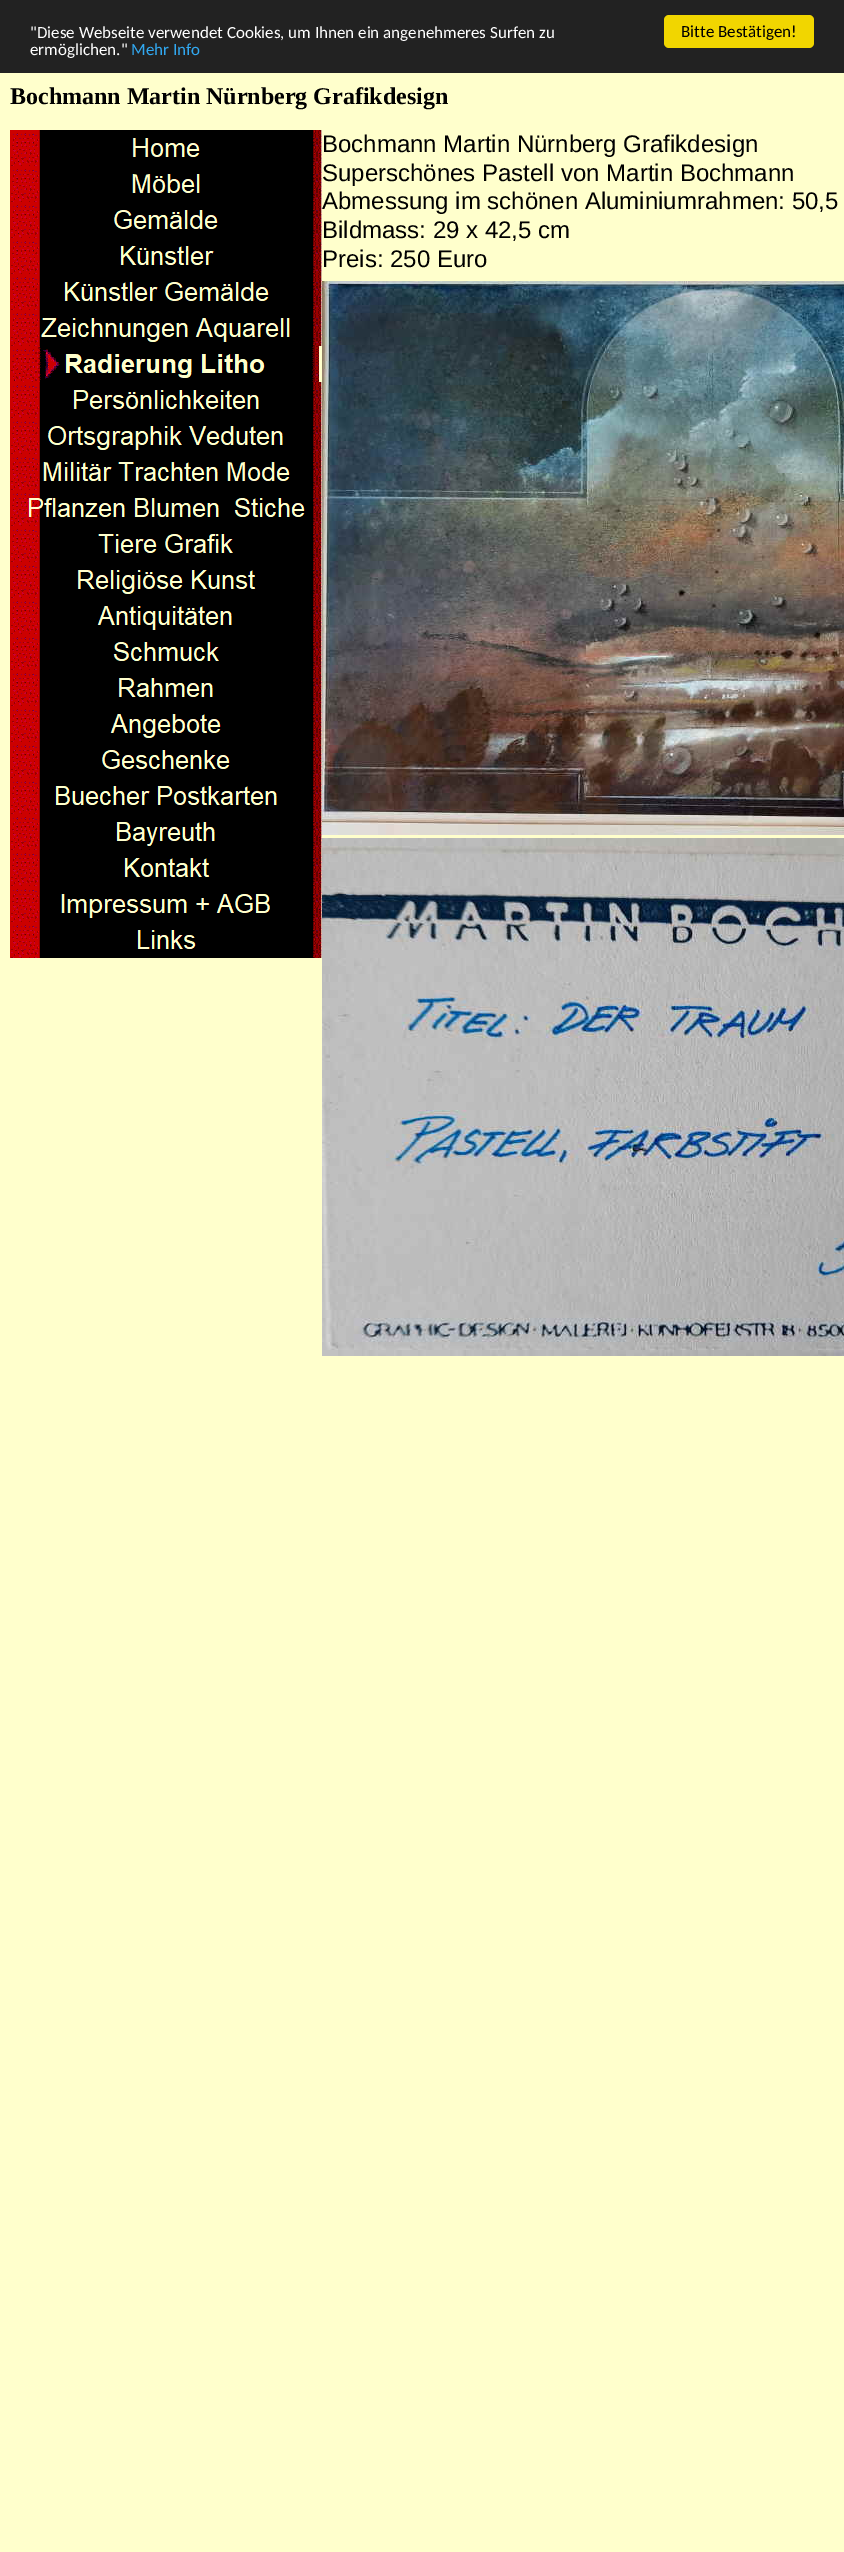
%!PS
<< /PageSize [844 2552] >> setpagedevice
/fl/fill load def
/co { dup -16 bitshift 255 div exch dup -8 bitshift 255 and 255 div exch 255 and 255 div setrgbcolor } def
/fn { [ exch dup neg 0 0 3 -1 roll 0 0 ] selectfont } def
/tx { co fn moveto show } def
/bx { co rectfill } def
/rr { 5 dict begin { /r /h /w /y /x } { exch def } forall
  x r add y moveto x w add y 2 copy h add r arct x w add y h add x 1 index r arct
  x y h add x y r arct x y 2 copy exch w add exch r arct closepath end } def
/im { 5 dict begin { /h /w /y /x /name } { exch def } forall
  gsave x y translate w h scale
  w h 8 [w 0 0 h 0 0] name (r) file false 3 colorimage grestore end } def
0 2552 translate 1 -1 scale
4 setmiterlimit
0 0 844 2552 16#FFFFCC bx
0 0 844 73 16#222222 bx
16#F1D600 co
664 15 150 33 5 rr fl
(media/1.raw) 10 130 312 36 im
(media/2.raw) 10 166 312 36 im
(media/3.raw) 10 202 312 36 im
(media/4.raw) 10 238 312 36 im
(media/5.raw) 10 274 312 36 im
(media/6.raw) 10 310 312 36 im
(media/7.raw) 10 346 309 36 im
(media/8.raw) 10 382 312 36 im
(media/9.raw) 10 418 312 36 im
(media/10.raw) 10 454 312 36 im
(media/11.raw) 10 490 312 36 im
(media/12.raw) 10 526 312 36 im
(media/13.raw) 10 562 312 36 im
(media/14.raw) 10 598 312 36 im
(media/15.raw) 10 634 312 36 im
(media/16.raw) 10 670 312 36 im
(media/17.raw) 10 706 312 36 im
(media/18.raw) 10 742 312 36 im
(media/19.raw) 10 778 312 36 im
(media/20.raw) 10 814 312 36 im
(media/21.raw) 10 850 312 36 im
(media/22.raw) 10 886 312 36 im
(media/23.raw) 10 922 312 36 im
(media/24.raw) 322 281 522 554 im
(media/25.raw) 322 838 522 518 im
("Diese Webseite verwendet Cookies, um Ihnen ein angenehmeres Surfen zu) 30 38 /Carlito-Regular 17 16#FFFFFF tx
(ermöglichen.") 30 55 /Carlito-Regular 17 16#FFFFFF tx
(Mehr Info) 131 55 /Carlito-Regular 17 16#31A8F0 tx
(Bitte Bestätigen!) 681 37 /Carlito-Regular 17 16#000000 tx
(Bochmann Martin Nürnberg Grafikdesign) 10 104 /LiberationSerif-Bold 24 16#000000 tx
(Bochmann Martin Nürnberg Grafikdesign) 322 152 /LiberationSans-Regular 24 16#000000 tx
(Superschönes Pastell von Martin Bochmann) 322 181 /LiberationSans-Regular 24 16#000000 tx
(Abmessung im schönen Aluminiumrahmen: 50,5) 322 209 /LiberationSans-Regular 24 16#000000 tx
(Bildmass: 29 x 42,5 cm) 322 238 /LiberationSans-Regular 24 16#000000 tx
(Preis: 250 Euro) 322 267 /LiberationSans-Regular 24 16#000000 tx
showpage
